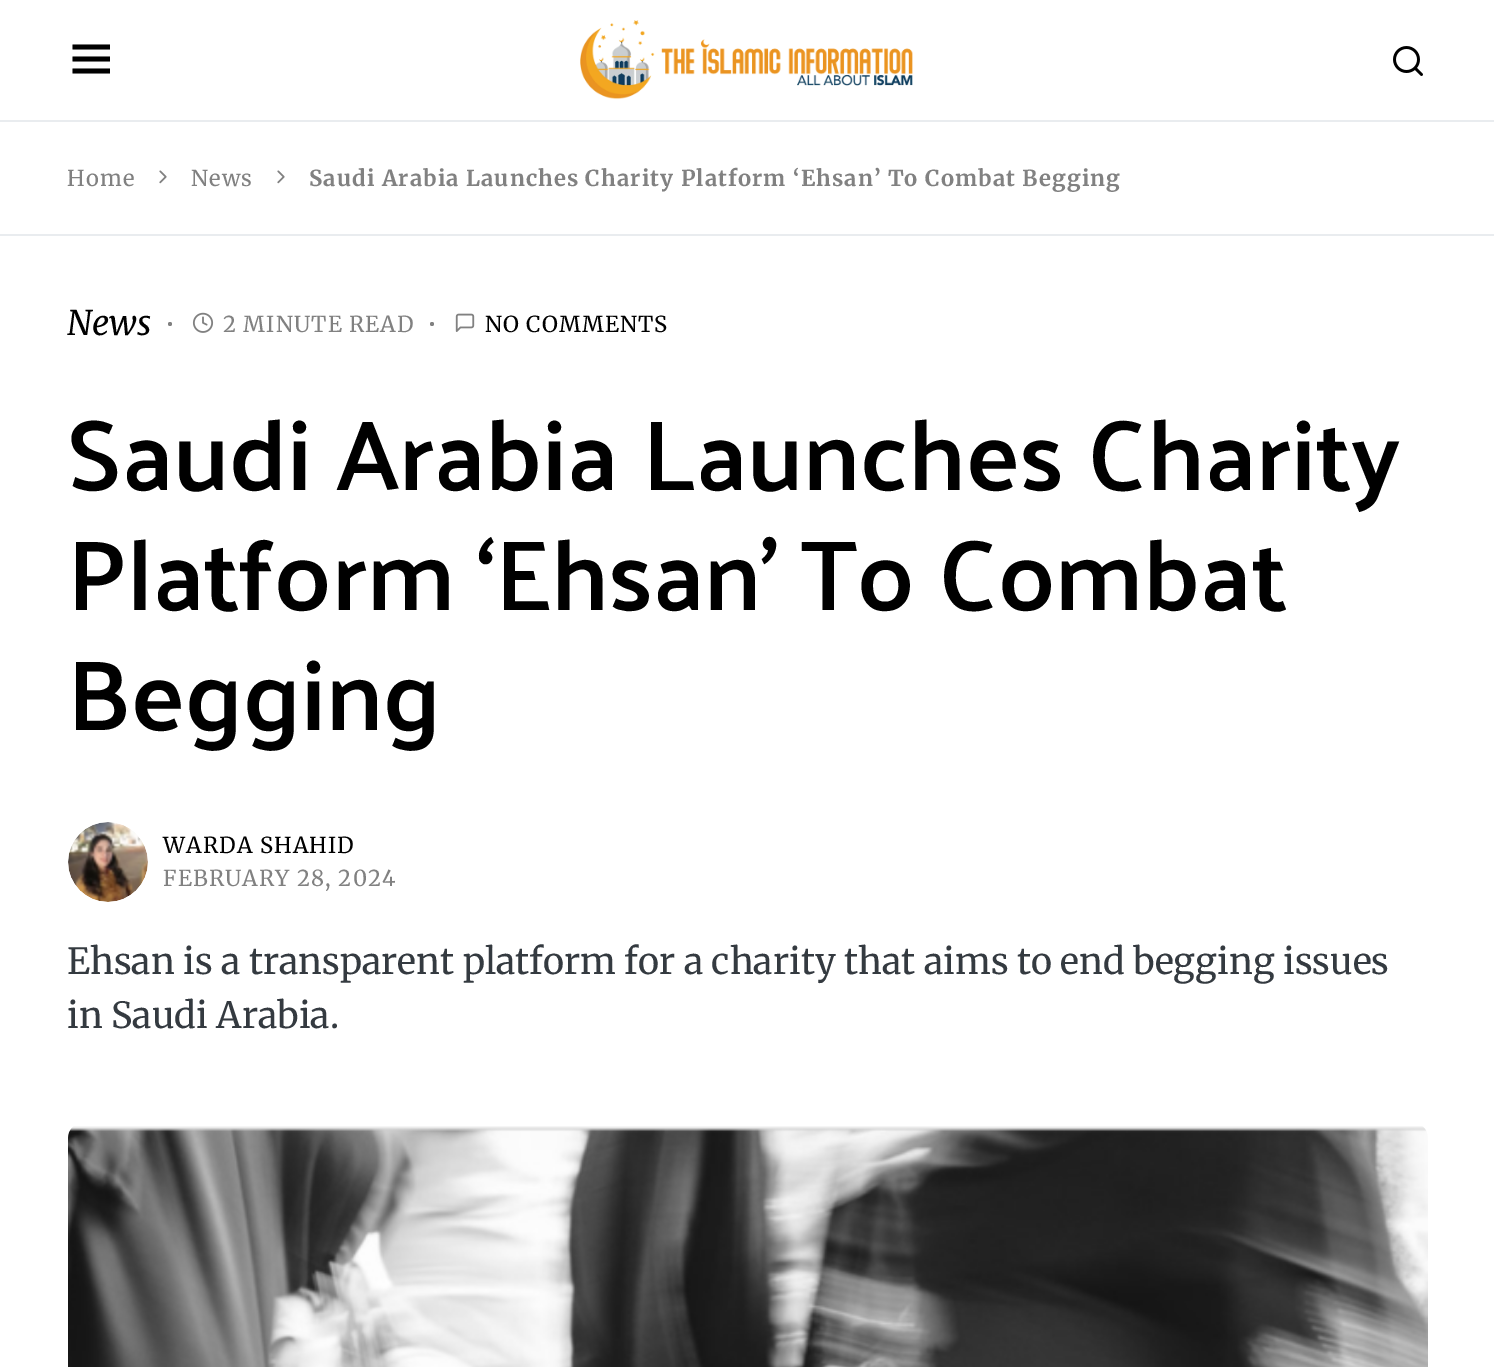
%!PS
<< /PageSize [1494 1367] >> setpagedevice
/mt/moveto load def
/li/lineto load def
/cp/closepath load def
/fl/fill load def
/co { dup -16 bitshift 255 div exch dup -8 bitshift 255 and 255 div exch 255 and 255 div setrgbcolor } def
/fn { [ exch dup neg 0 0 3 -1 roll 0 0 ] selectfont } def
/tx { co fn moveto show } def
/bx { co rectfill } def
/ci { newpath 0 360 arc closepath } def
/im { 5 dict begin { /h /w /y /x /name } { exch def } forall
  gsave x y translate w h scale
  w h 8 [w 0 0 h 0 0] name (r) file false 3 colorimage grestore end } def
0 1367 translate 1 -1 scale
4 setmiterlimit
0 0 1494 1367 16#FFFFFF bx
0 120 1494 2 16#E9ECEF bx
16#000000 co
72.5 44.5 mt 110 44.5 li 110 49.5 li 72.5 49.5 li cp 72.5 56.5 mt 110 56.5 li 110 61.5 li 72.5 61.5 li cp 72.5 68.5 mt 110 68.5 li 110 73.5 li 72.5 73.5 li cp fl
(media/1.raw) 580 20 333 80 im
(media/2.raw) 1393 46 30 30 im
(media/3.raw) 159 170 8 14 im
(media/3.raw) 277 170 8 14 im
0 234 1494 2 16#E9ECEF bx
16#818181 co
170 324 2 ci fl
(media/4.raw) 192 312 22 21 im
432 324 2 ci fl
(media/5.raw) 455 313 20 19 im
(media/6.raw) 68 822 80 80 im
(media/7.raw) 68 1126 1360 241 im
/Merriweather-Regular 22 fn
67 186 mt 1.1 0 (Home) ashow
191 186 mt 1.1 0 (News) ashow
/Merriweather-Bold 22 fn
309 186 mt 1.1 0 (Saudi Arabia Launches Charity Platform ‘Ehsan’ To Combat Begging) ashow
(News) 67 335 /Merriweather-Italic 34 16#000000 tx
/Merriweather-Regular 22 fn
16#818181 co
223 332 mt 1.1 0 (2 MINUTE READ) ashow
16#000000 co
485 332 mt 1.1 0 (NO COMMENTS) ashow
(Saudi Arabia Launches Charity) 67 490 /Palanquin-SemiBold 100 16#000000 tx
(Platform ‘Ehsan’ To Combat) 67 610 /Palanquin-SemiBold 100 16#000000 tx
(Begging) 67 730 /Palanquin-SemiBold 100 16#000000 tx
/Merriweather-Regular 22 fn
163 853 mt 1.1 0 (WARDA SHAHID) ashow
16#818181 co
163 886 mt 1.1 0 (FEBRUARY 28, 2024) ashow
(Ehsan is a transparent platform for a charity that aims to end begging issues) 67 974 /Merriweather-Regular 36 16#343A40 tx
(in Saudi Arabia.) 67 1028 /Merriweather-Regular 36 16#343A40 tx
showpage
